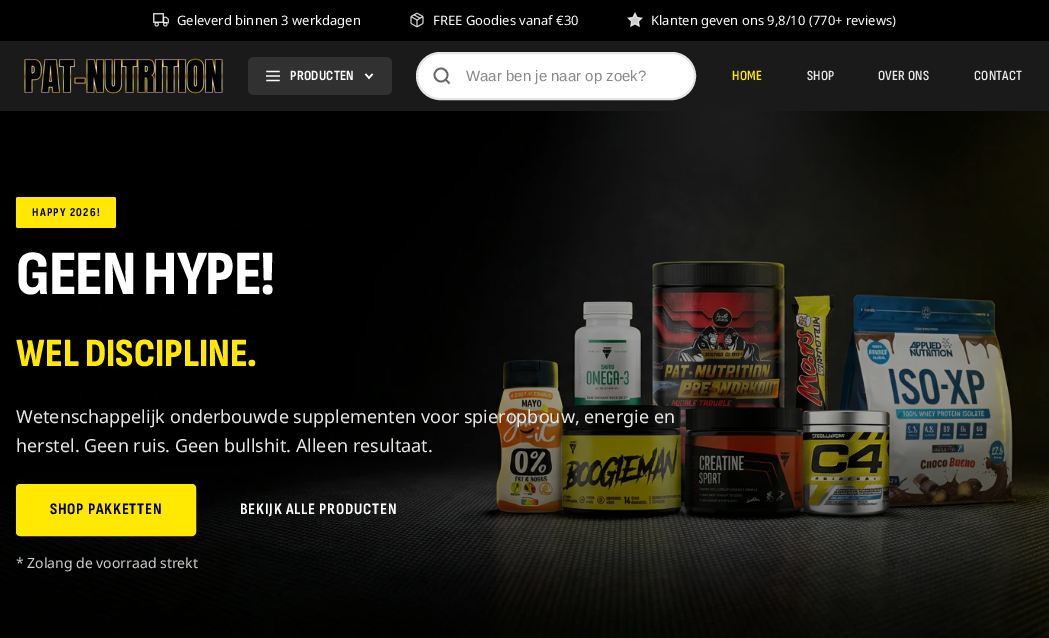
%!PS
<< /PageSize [1049 638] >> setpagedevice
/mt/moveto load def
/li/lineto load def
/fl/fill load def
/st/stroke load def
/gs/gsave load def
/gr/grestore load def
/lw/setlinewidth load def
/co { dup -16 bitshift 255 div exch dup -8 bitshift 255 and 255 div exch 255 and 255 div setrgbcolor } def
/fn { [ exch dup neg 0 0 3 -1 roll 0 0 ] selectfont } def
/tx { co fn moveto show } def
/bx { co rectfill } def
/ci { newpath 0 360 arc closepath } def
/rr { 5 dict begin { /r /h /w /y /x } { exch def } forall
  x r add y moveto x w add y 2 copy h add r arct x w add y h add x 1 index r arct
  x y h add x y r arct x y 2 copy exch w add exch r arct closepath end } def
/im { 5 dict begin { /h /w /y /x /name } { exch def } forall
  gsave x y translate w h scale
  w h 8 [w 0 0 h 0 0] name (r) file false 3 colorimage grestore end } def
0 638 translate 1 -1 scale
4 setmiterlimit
0 0 1049 638 16#000000 bx
(media/1.raw) 153 13 16 14 im
(media/2.raw) 410 12 14 16 im
(media/3.raw) 627 12 16 16 im
0 41 1049 70 16#1A1A1A bx
(media/4.raw) 24 58 199 36 im
16#313131 co
248 57 144 38 6 rr fl
(media/5.raw) 266 70 14 12 im
16#FFFFFF co
1.5 lw
365.5 74 mt 369 78 li 372.5 74 li st
417 53 278 46 23 rr gs fl gr
16#E5E5E5 co
2 lw
st
16#666666 co
1.7 lw
441 75 6.5 ci st
449.5 83.5 mt 446 80 li st
(media/6.raw) 0 111 1049 527 im
16#FFE801 co
16 197 100 31 2 rr fl
17 485 178 50 3 rr gs fl gr
2 lw
st
(Geleverd binnen 3 werkdagen) 177 25 /NotoSans-Regular 13 16#FFFFFF tx
(FREE Goodies vanaf €30) 433 25 /NotoSans-Regular 13 16#FFFFFF tx
(Klanten geven ons 9,8/10 \(770+ reviews\)) 651 25 /NotoSans-Regular 13 16#FFFFFF tx
/SofiaSansCondensed-Bold 14 fn
290 80 mt .25 0 (PRODUCTEN) ashow
(Waar ben je naar op zoek?) 466 81 /LiberationSans-Regular 15 16#888888 tx
/SofiaSansCondensed-SemiBold 14 fn
16#FFE801 co
732 80 mt .25 0 (HOME) ashow
16#E7E7E6 co
807 80 mt .25 0 (SHOP) ashow
878 80 mt .25 0 (OVER ONS) ashow
974 80 mt .25 0 (CONTACT) ashow
/SofiaSansCondensed-Bold 12 fn
16#000000 co
32 216 mt 1.25 0 (HAPPY 2026!) ashow
/SofiaSansCondensed-ExtraBold 63 fn
16#FFFFFF co
16 294 mt -1.25 0 (GEEN HYPE!) ashow
(WEL DISCIPLINE.) 16 366 /SofiaSansCondensed-ExtraBold 40 16#FFE801 tx
(Wetenschappelijk onderbouwde supplementen voor spieropbouw, energie en) 16 423 /NotoSans-Regular 18 16#E7E7E6 tx
(herstel. Geen ruis. Geen bullshit. Alleen resultaat.) 16 452 /NotoSans-Regular 18 16#E7E7E6 tx
/SofiaSansCondensed-Bold 16 fn
16#000000 co
50 514 mt .8 0 (SHOP PAKKETTEN) ashow
16#FFFFFF co
240 514 mt .8 0 (BEKIJK ALLE PRODUCTEN) ashow
(* Zolang de voorraad strekt) 16 568 /NotoSans-Regular 14 16#CDCDCD tx
showpage
